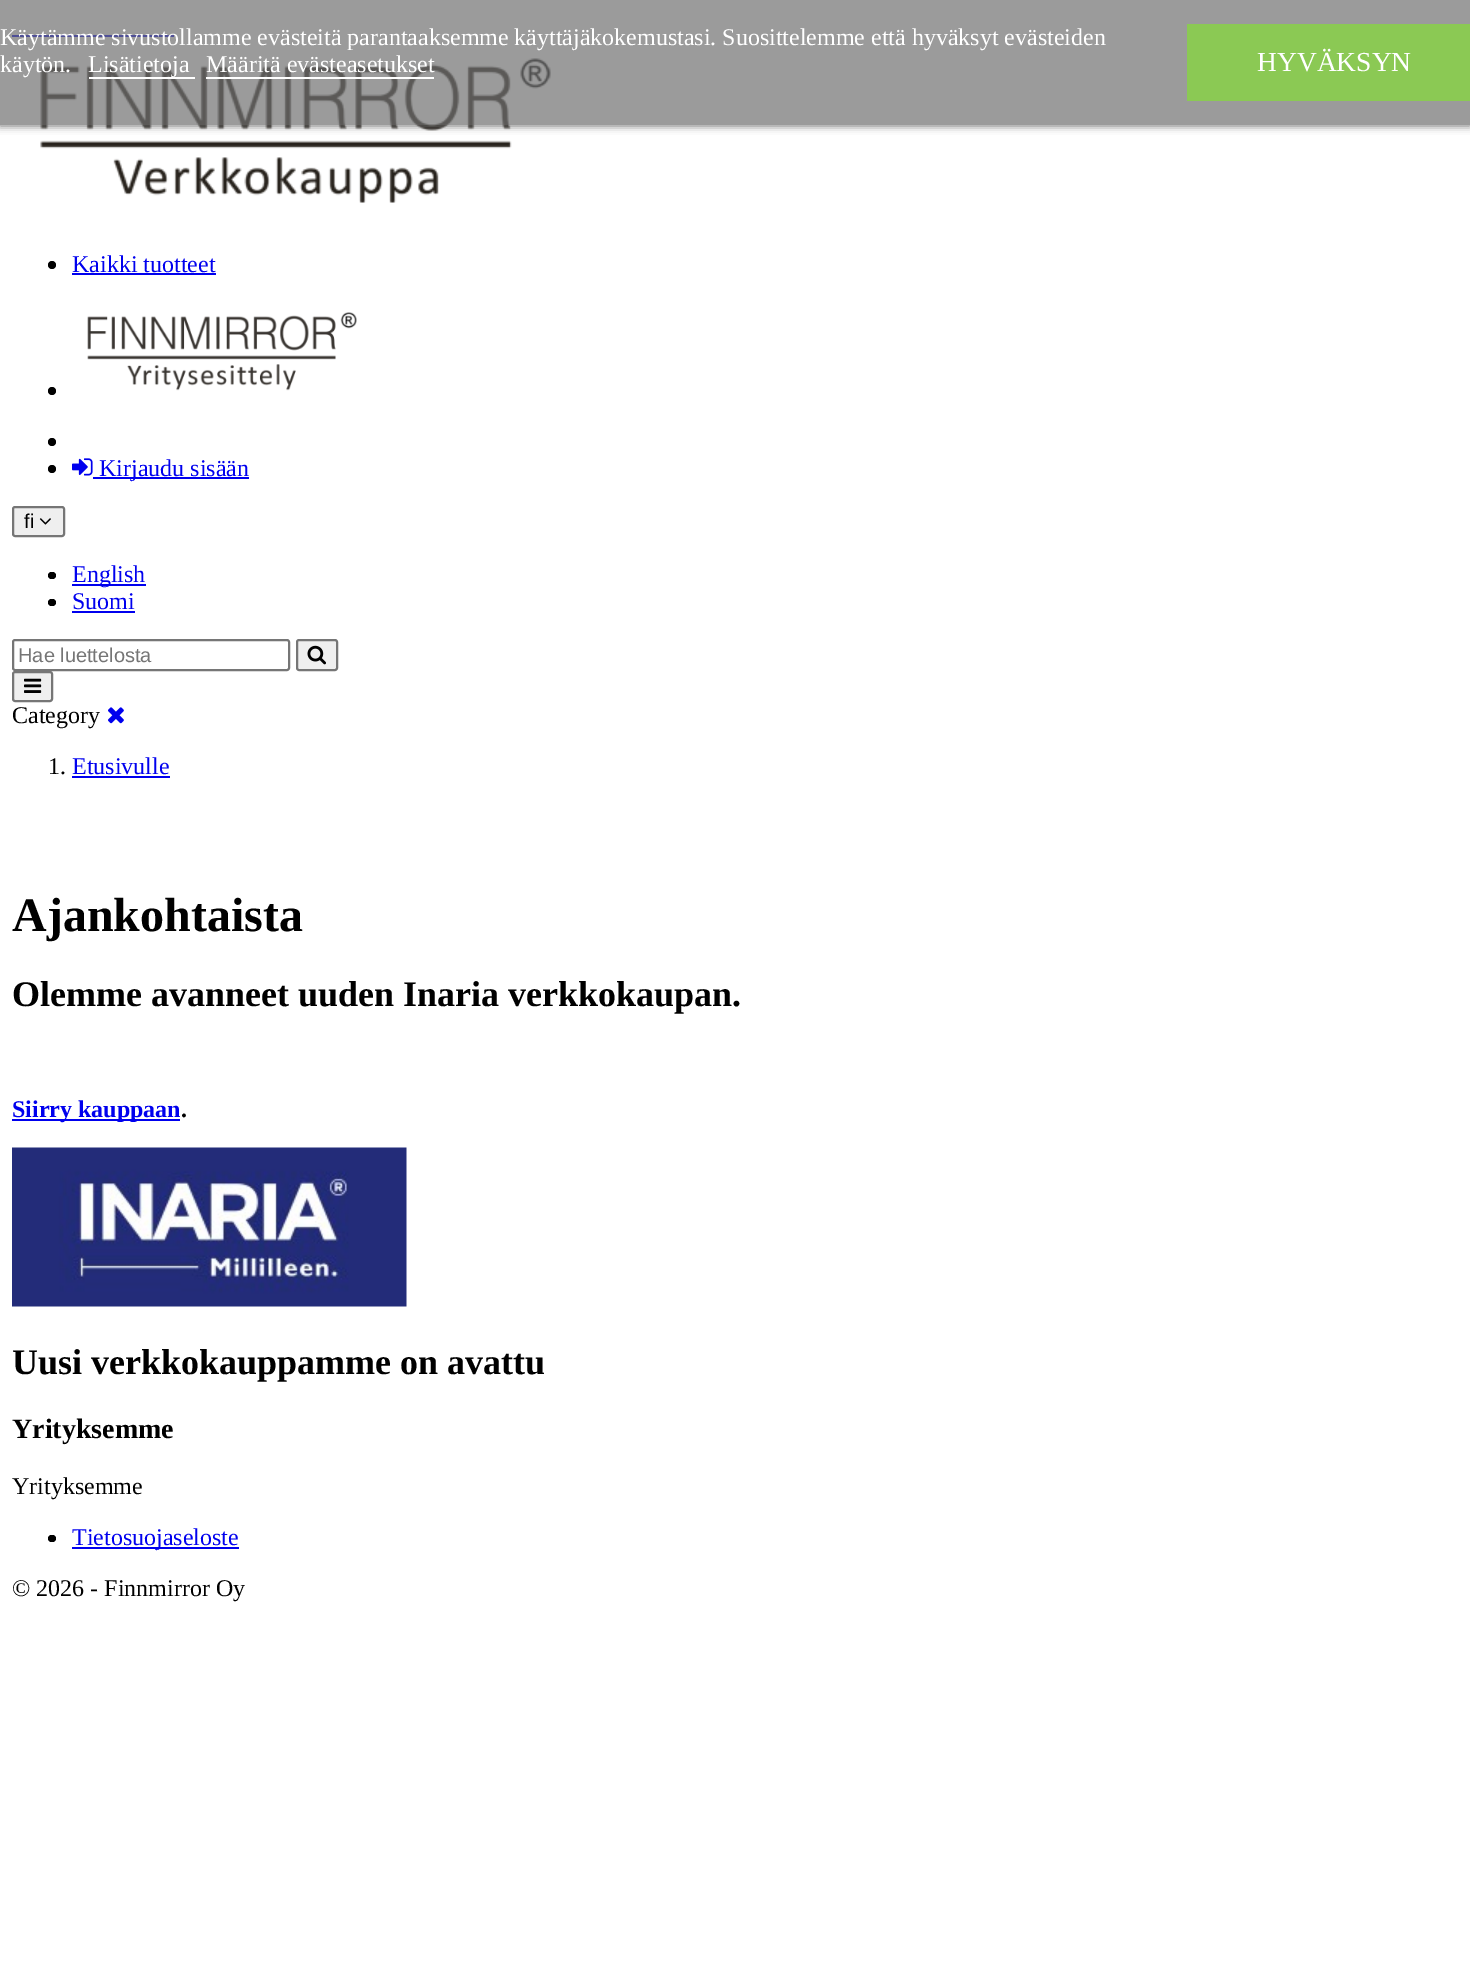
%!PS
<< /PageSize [1470 1974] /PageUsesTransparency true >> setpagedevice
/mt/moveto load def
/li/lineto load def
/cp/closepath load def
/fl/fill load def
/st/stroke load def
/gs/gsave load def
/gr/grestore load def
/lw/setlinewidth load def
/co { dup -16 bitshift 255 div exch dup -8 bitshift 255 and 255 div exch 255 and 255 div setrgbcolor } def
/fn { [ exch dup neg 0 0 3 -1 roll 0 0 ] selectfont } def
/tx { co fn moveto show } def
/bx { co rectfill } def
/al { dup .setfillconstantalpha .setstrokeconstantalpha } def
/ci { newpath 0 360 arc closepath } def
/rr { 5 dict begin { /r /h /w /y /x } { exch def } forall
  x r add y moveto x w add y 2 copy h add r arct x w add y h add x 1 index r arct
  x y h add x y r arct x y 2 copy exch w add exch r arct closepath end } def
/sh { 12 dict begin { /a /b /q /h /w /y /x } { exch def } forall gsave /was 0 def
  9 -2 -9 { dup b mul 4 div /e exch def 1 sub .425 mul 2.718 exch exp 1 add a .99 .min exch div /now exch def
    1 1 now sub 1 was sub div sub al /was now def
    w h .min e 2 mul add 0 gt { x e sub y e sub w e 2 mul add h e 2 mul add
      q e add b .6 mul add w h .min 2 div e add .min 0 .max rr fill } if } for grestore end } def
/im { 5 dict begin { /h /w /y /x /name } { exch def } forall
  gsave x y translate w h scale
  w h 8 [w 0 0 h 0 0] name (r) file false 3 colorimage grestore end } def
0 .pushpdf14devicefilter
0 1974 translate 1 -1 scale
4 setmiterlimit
0 0 1470 1974 16#FFFFFF bx
(media/7.raw) 40 58 511 145 im
12 35 162 2 16#0000EE bx
gs
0 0 mt 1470 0 li 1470 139 li 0 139 li cp 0 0 mt 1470 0 li 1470 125 li 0 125 li cp eoclip newpath
16#707070 co
0 2 1470 124 0 4 1 sh
gr
0.7 al
0 0 1470 125 16#707070 bx
1 al
89 77 106 2 16#FFFFFF bx
206 77 228 2 16#FFFFFF bx
1187 24 283 77 16#8BC954 bx
16#000000 co
52 265 4 ci fl
72 273 144 2 16#0000EE bx
16#000000 co
52 391 4 ci fl
(media/1.raw) 87 312 270 79 im
52 442 4 ci fl
52 469 4 ci fl
(media/2.raw) 72 458 21 18 im
93 477 156 2 16#0000EE bx
16#EFEFEF co
13 507 51 29 2 rr gs fl gr
16#767676 co
2 lw
st
(media/3.raw) 39 518 12 7 im
16#000000 co
48 572 8 7 3.5 rr fl
72 584 74 2 16#0000EE bx
16#000000 co
48 599 8 7 3.5 rr fl
72 611 63 2 16#0000EE bx
16#767676 co
13 640 276 30 2 rr st
16#EFEFEF co
297 640 40 30 2 rr gs fl gr
16#767676 co
st
(media/4.raw) 307 645 19 20 im
16#EFEFEF co
13 672 39 29 2 rr gs fl gr
16#767676 co
st
(media/5.raw) 24 678 18 15 im
(media/6.raw) 108 707 16 17 im
72 776 98 2 16#0000EE bx
12 1119 168 2 16#0000EE bx
(media/8.raw) 12 1147 395 160 im
16#000000 co
48 1535 8 7 3.5 rr fl
72 1547 167 2 16#0000EE bx
(Käytämme sivustollamme evästeitä parantaaksemme käyttäjäkokemustasi. Suosittelemme että hyväksyt evästeiden) 0 45 /LiberationSerif-Regular 24 16#FFFFFF tx
(käytön.) 0 72 /LiberationSerif-Regular 24 16#FFFFFF tx
(Lisätietoja) 88 72 /LiberationSerif-Regular 24 16#FFFFFF tx
(Määritä evästeasetukset) 206 72 /LiberationSerif-Regular 24 16#FFFFFF tx
(HYVÄKSYN) 1257 71 /LiberationSerif-Regular 27.5 16#FFFFFF tx
(Kaikki tuotteet) 72 272 /LiberationSerif-Regular 24 16#0000EE tx
(Kirjaudu sisään) 99 476 /LiberationSerif-Regular 24 16#0000EE tx
(fi) 24 528 /LiberationSans-Regular 20 16#000000 tx
(English) 72 582 /LiberationSerif-Regular 24 16#0000EE tx
(Suomi) 72 609 /LiberationSerif-Regular 24 16#0000EE tx
(Hae luettelosta) 18 662 /LiberationSans-Regular 20 16#757575 tx
(Category) 12 723 /LiberationSerif-Regular 24 16#000000 tx
(1.) 48 774 /LiberationSerif-Regular 24 16#000000 tx
(Etusivulle) 72 774 /LiberationSerif-Regular 24 16#0000EE tx
(Ajankohtaista) 12 931 /LiberationSerif-Bold 48 16#000000 tx
(Olemme avanneet uuden Inaria verkkokaupan.) 12 1006 /LiberationSerif-Bold 36 16#000000 tx
(Siirry kauppaan) 12 1117 /LiberationSerif-Bold 24 16#0000EE tx
(.) 181 1117 /LiberationSerif-Bold 24 16#000000 tx
(Uusi verkkokauppamme on avattu) 12 1374 /LiberationSerif-Bold 36 16#000000 tx
(Yrityksemme) 12 1438 /LiberationSerif-Bold 28 16#000000 tx
(Yrityksemme) 12 1494 /LiberationSerif-Regular 24 16#000000 tx
(Tietosuojaseloste) 72 1545 /LiberationSerif-Regular 24 16#0000EE tx
(© 2026 - Finnmirror Oy) 12 1596 /LiberationSerif-Regular 24 16#000000 tx
.poppdf14devicefilter showpage
